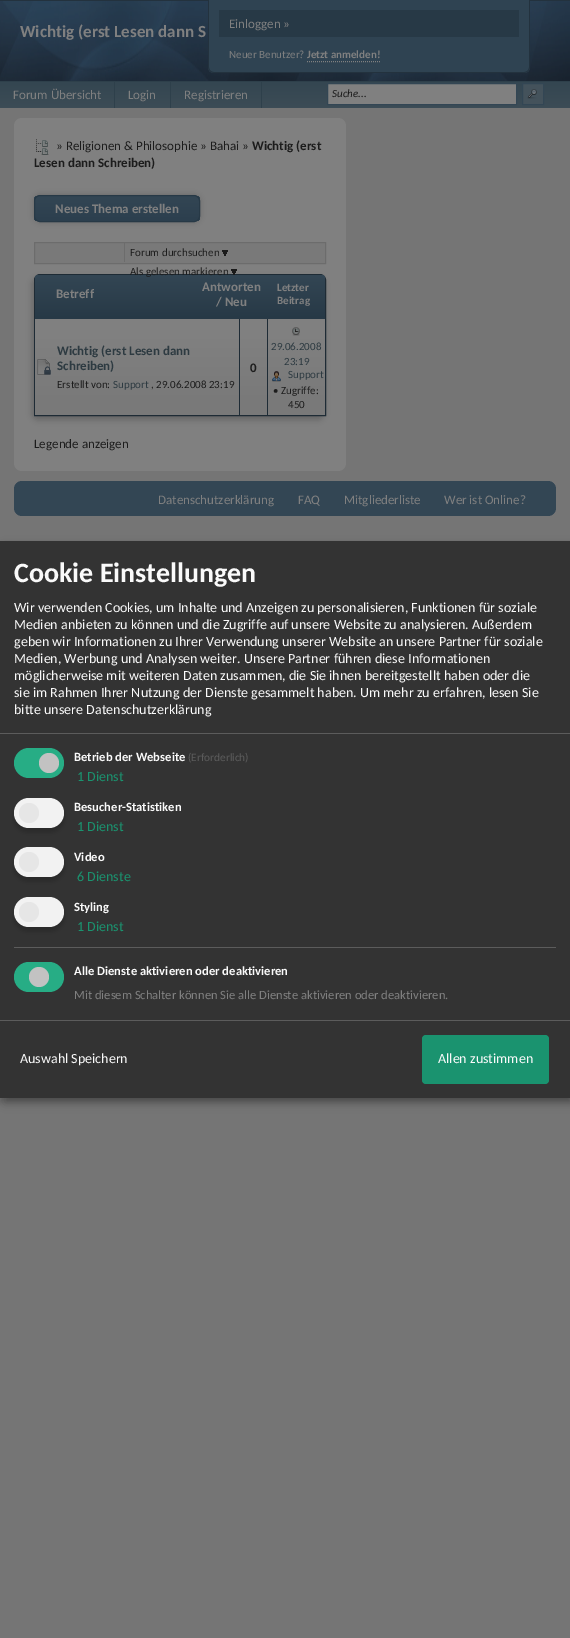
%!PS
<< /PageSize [570 1638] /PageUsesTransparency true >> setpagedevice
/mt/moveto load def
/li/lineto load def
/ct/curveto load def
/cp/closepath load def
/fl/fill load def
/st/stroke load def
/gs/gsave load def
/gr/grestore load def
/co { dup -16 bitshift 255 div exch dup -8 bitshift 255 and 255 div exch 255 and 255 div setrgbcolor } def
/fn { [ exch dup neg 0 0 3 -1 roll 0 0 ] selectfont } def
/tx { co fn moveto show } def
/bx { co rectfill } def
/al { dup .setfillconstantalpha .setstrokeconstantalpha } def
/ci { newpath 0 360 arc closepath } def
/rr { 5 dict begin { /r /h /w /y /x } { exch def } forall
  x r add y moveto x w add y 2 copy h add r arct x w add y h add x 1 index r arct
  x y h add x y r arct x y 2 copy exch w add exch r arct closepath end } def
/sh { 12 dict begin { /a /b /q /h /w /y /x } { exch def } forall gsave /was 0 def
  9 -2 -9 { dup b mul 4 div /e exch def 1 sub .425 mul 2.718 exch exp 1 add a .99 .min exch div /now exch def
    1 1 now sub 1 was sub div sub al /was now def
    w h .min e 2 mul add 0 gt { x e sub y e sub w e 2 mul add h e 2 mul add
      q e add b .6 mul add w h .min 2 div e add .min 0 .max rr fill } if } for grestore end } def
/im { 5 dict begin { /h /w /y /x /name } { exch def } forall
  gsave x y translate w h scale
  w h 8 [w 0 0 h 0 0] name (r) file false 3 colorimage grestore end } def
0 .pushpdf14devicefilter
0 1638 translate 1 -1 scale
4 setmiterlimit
0 0 570 1638 16#757575 bx
0 0 570 1 16#23323E bx
(media/1.raw) 0 1 570 80 im
16#2F4352 co
208 0 mt 530 0 li 530 67 li 530 70.5 527.5 73 524 73 ct 214 73 li 210.5 73 208 70.5 208 67 ct cp fl
16#23323E co
208 0 mt 530 0 li 530 67 li 530 70 527 73 524 73 ct 214 73 li 211 73 208 70 208 67 ct cp 209 0 mt 529 0 li 529 67 li 529 70 527 72 524 72 ct 214 72 li 211 72 209 70 209 67 ct cp eofill
219 10 300 27 16#273946 bx
16#808080 co
[1 1] 0 setdash
307 61.5 mt 380 61.5 li st
gs 0 82 mt 570 82 li 570 108 li 0 108 li cp clip newpath
<< /ShadingType 2 /ColorSpace /DeviceRGB /Coords [0 81 0 108] /Extend [true true] /Function << /FunctionType 2 /Domain [0 1] /C0 [.204 .275 .318] /C1 [.235 .298 .337] /N 1 >> >> shfill gr
0 81 570 1 16#2E404B bx
114 81 1 27 16#2E404B bx
261 81 1 27 16#2E404B bx
170 81 1 27 16#2E404B bx
16#808080 co
327.5 83.5 mt 516.5 83.5 li 516.5 104.5 li 327.5 104.5 li cp gs fl gr
16#334654 co
[] 0 setdash
st
523 84 20 20 16#44525B bx
(media/2.raw) 527 89 10 10 im
16#334654 co
522.5 83.5 21 21 rectstroke
16#808080 co
14 118 332 353 8 rr fl
(media/3.raw) 36 139 13 16 im
16#666666 co
34 195 166 27 6 3 1 sh
gs
34 195 166 27 6 rr clip newpath
gs 34 196 mt 200 196 li 200 221 li 34 221 li cp clip newpath
<< /ShadingType 2 /ColorSpace /DeviceRGB /Coords [35 196 35 221] /Extend [true true] /Function << /FunctionType 2 /Domain [0 1] /C0 [.2 .275 .329] /C1 [.173 .247 .306] /N 1 >> >> shfill gr
gr
16#273946 co
34.5 195.5 165 26 5.5 rr st
16#797979 co
34.5 242.5 mt 325.5 242.5 li 325.5 263.5 li 34.5 263.5 li cp gs fl gr
16#6C6C6C co
st
124 243 1 19 16#6C6C6C bx
(media/4.raw) 222 250 6 6 im
16#666666 co
32 278 292 142 6 3 1 sh
16#1E2B35 co
40 274.5 mt 320 274.5 li 323 274.5 325.5 277 325.5 280 ct 325.5 415.5 li 34.5 415.5 li 34.5 280 li 34.5 277 37 274.5 40 274.5 ct cp st
(media/5.raw) 231 269 6 6 im
gs 35 319 mt 325 319 li 325 415 li 35 415 li cp clip newpath
<< /ShadingType 2 /ColorSpace /DeviceRGB /Coords [79 405 79 338] /Extend [true true] /Function << /FunctionType 2 /Domain [0 1] /C0 [.475 .475 .475] /C1 [.502 .502 .502] /N 1 >> >> shfill gr
239 318 1 98 16#1E2B35 bx
267 318 1 98 16#1E2B35 bx
gs 40 275 mt 320 275 li 323 275 325 277 325 280 ct 325 319 li 35 319 li 35 280 li 35 277 37 275 40 275 ct cp clip newpath
<< /ShadingType 2 /ColorSpace /DeviceRGB /Coords [35 275 35 319] /Extend [true true] /Function << /FunctionType 2 /Domain [0 1] /C0 [.2 .275 .329] /C1 [.153 .224 .275] /N 1 >> >> shfill gr
(media/6.raw) 37 359 14 16 im
(media/7.raw) 292 327 8 9 im
(media/8.raw) 272 371 9 11 im
16#334654 co
14 481 542 35 8 rr fl
16#000000 co
5 546 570 557 0 5 .19 sh
0 545 570 557 0 3 .2 sh
0 541 570 557 16#333333 bx
0 733 570 1 16#5C5C5C bx
16#27AD85 co
14 748 50 30 15 rr fl
16#C2C2C2 co
49 763 10 ci fl
16#000000 co
14 802 50 30 15 3 .2 sh
16#F2F2F2 co
14 798 50 30 15 rr fl
16#E6E6E6 co
29 813 10 ci fl
16#000000 co
14 851 50 30 15 3 .2 sh
16#F2F2F2 co
14 847 50 30 15 rr fl
16#E6E6E6 co
29 862 10 ci fl
16#000000 co
14 901 50 30 15 3 .2 sh
16#F2F2F2 co
14 897 50 30 15 rr fl
16#E6E6E6 co
29 912 10 ci fl
14 947 542 1 16#5C5C5C bx
16#27AD85 co
14 962 50 30 15 rr fl
16#C2C2C2 co
39 977 10 ci fl
0 1020 570 1 16#5C5C5C bx
16#1A936F co
422 1035 127 49 4 rr fl
(Einloggen ») 229 28 /Carlito-Regular 13 16#808080 tx
(Neuer Benutzer?) 229 58 /Carlito-Regular 11 16#808080 tx
(Jetzt anmelden!) 307 58 /Carlito-Bold 11 16#808080 tx
(Wichtig \(erst Lesen dann S) 20 37 /Carlito-Bold 17 16#808080 tx
(Forum Übersicht) 13 99 /Carlito-Regular 13 16#808080 tx
(Login) 128 99 /Carlito-Regular 13 16#808080 tx
(Registrieren) 184 99 /Carlito-Regular 13 16#808080 tx
(Suche...) 332 97 /Carlito-Italic 11 16#1C1C1C tx
(» Religionen & Philosophie » Bahai ») 56 150 /Carlito-Regular 13 16#1C1C1C tx
(Wichtig \(erst) 252 150 /Carlito-Bold 13 16#1C1C1C tx
(Lesen dann Schreiben\)) 34 167 /Carlito-Bold 13 16#1C1C1C tx
(Neues Thema erstellen) 55 213 /Carlito-Bold 13 16#808080 tx
(Forum durchsuchen) 130 256 /Carlito-Regular 11 16#1C1C1C tx
(Als gelesen markieren) 130 275 /Carlito-Regular 11 16#1C1C1C tx
(Betreff) 56 298 /Carlito-Bold 13 16#808080 tx
(Antworten) 202 291 /Carlito-Bold 13 16#808080 tx
(/ Neu) 216 306 /Carlito-Bold 13 16#808080 tx
(Letzter) 277 291 /Carlito-Bold 11 16#808080 tx
(Beitrag) 277 304 /Carlito-Bold 11 16#808080 tx
(Wichtig \(erst Lesen dann) 57 355 /Carlito-Bold 13 16#2D3A41 tx
(Schreiben\)) 57 370 /Carlito-Bold 13 16#2D3A41 tx
(Erstellt von:) 57 388 /Carlito-Regular 11 16#1C1C1C tx
(Support) 113 388 /Carlito-Regular 11 16#2D3A41 tx
(, 29.06.2008 23:19) 151 388 /Carlito-Regular 11 16#1C1C1C tx
(0) 250 372 /Carlito-Bold 13 16#1C1C1C tx
(29.06.2008) 271 350 /Carlito-Regular 11 16#2D3A41 tx
(23:19) 284 365 /Carlito-Regular 11 16#2D3A41 tx
(Support) 288 378 /Carlito-Regular 11 16#2D3A41 tx
(• Zugriffe:) 273 394 /Carlito-Regular 11 16#1C1C1C tx
(450) 288 408 /Carlito-Regular 11 16#1C1C1C tx
(Legende anzeigen) 34 448 /Carlito-Regular 13 16#1C1C1C tx
(Datenschutzerklärung) 158 504 /Carlito-Regular 13 16#808080 tx
(FAQ) 298 504 /Carlito-Regular 13 16#808080 tx
(Mitgliederliste) 344 504 /Carlito-Regular 13 16#808080 tx
(Wer ist Online?) 444 504 /Carlito-Regular 13 16#808080 tx
(Cookie Einstellungen) 14 582 /Carlito-Bold 28 16#FAFAFA tx
(Wir verwenden Cookies, um Inhalte und Anzeigen zu personalisieren, Funktionen für soziale) 14 612 /Carlito-Regular 14 16#FAFAFA tx
(Medien anbieten zu können und die Zugriffe auf unsere Website zu analysieren. Außerdem) 14 629 /Carlito-Regular 14 16#FAFAFA tx
(geben wir Informationen zu Ihrer Verwendung unserer Website an unsere Partner für soziale) 14 646 /Carlito-Regular 14 16#FAFAFA tx
(Medien, Werbung und Analysen weiter. Unsere Partner führen diese Informationen) 14 663 /Carlito-Regular 14 16#FAFAFA tx
(möglicherweise mit weiteren Daten zusammen, die Sie ihnen bereitgestellt haben oder die) 14 680 /Carlito-Regular 14 16#FAFAFA tx
(sie im Rahmen Ihrer Nutzung der Dienste gesammelt haben. Um mehr zu erfahren, lesen Sie) 14 697 /Carlito-Regular 14 16#FAFAFA tx
(bitte unsere Datenschutzerklärung) 14 714 /Carlito-Regular 14 16#FAFAFA tx
(Betrieb der Webseite) 74 761 /Carlito-Bold 12.6 16#FAFAFA tx
(\(Erforderlich\)) 188 761 /Carlito-Regular 11.25 16#5C5C5C tx
(1 Dienst) 77 781 /Carlito-Regular 14 16#1A936F tx
(Besucher-Statistiken) 74 811 /Carlito-Bold 12.6 16#FAFAFA tx
(1 Dienst) 77 831 /Carlito-Regular 14 16#1A936F tx
(Video) 74 861 /Carlito-Bold 12.6 16#FAFAFA tx
(6 Dienste) 77 881 /Carlito-Regular 14 16#1A936F tx
(Styling) 74 911 /Carlito-Bold 12.6 16#FAFAFA tx
(1 Dienst) 77 931 /Carlito-Regular 14 16#1A936F tx
(Alle Dienste aktivieren oder deaktivieren) 74 975 /Carlito-Bold 12.6 16#FAFAFA tx
(Mit diesem Schalter können Sie alle Dienste aktivieren oder deaktivieren.) 74 999 /Carlito-Regular 12.6 16#808080 tx
(Auswahl Speichern) 20 1063 /Carlito-Regular 14 16#FAFAFA tx
(Allen zustimmen) 438 1063 /Carlito-Regular 14 16#FAFAFA tx
.poppdf14devicefilter showpage
